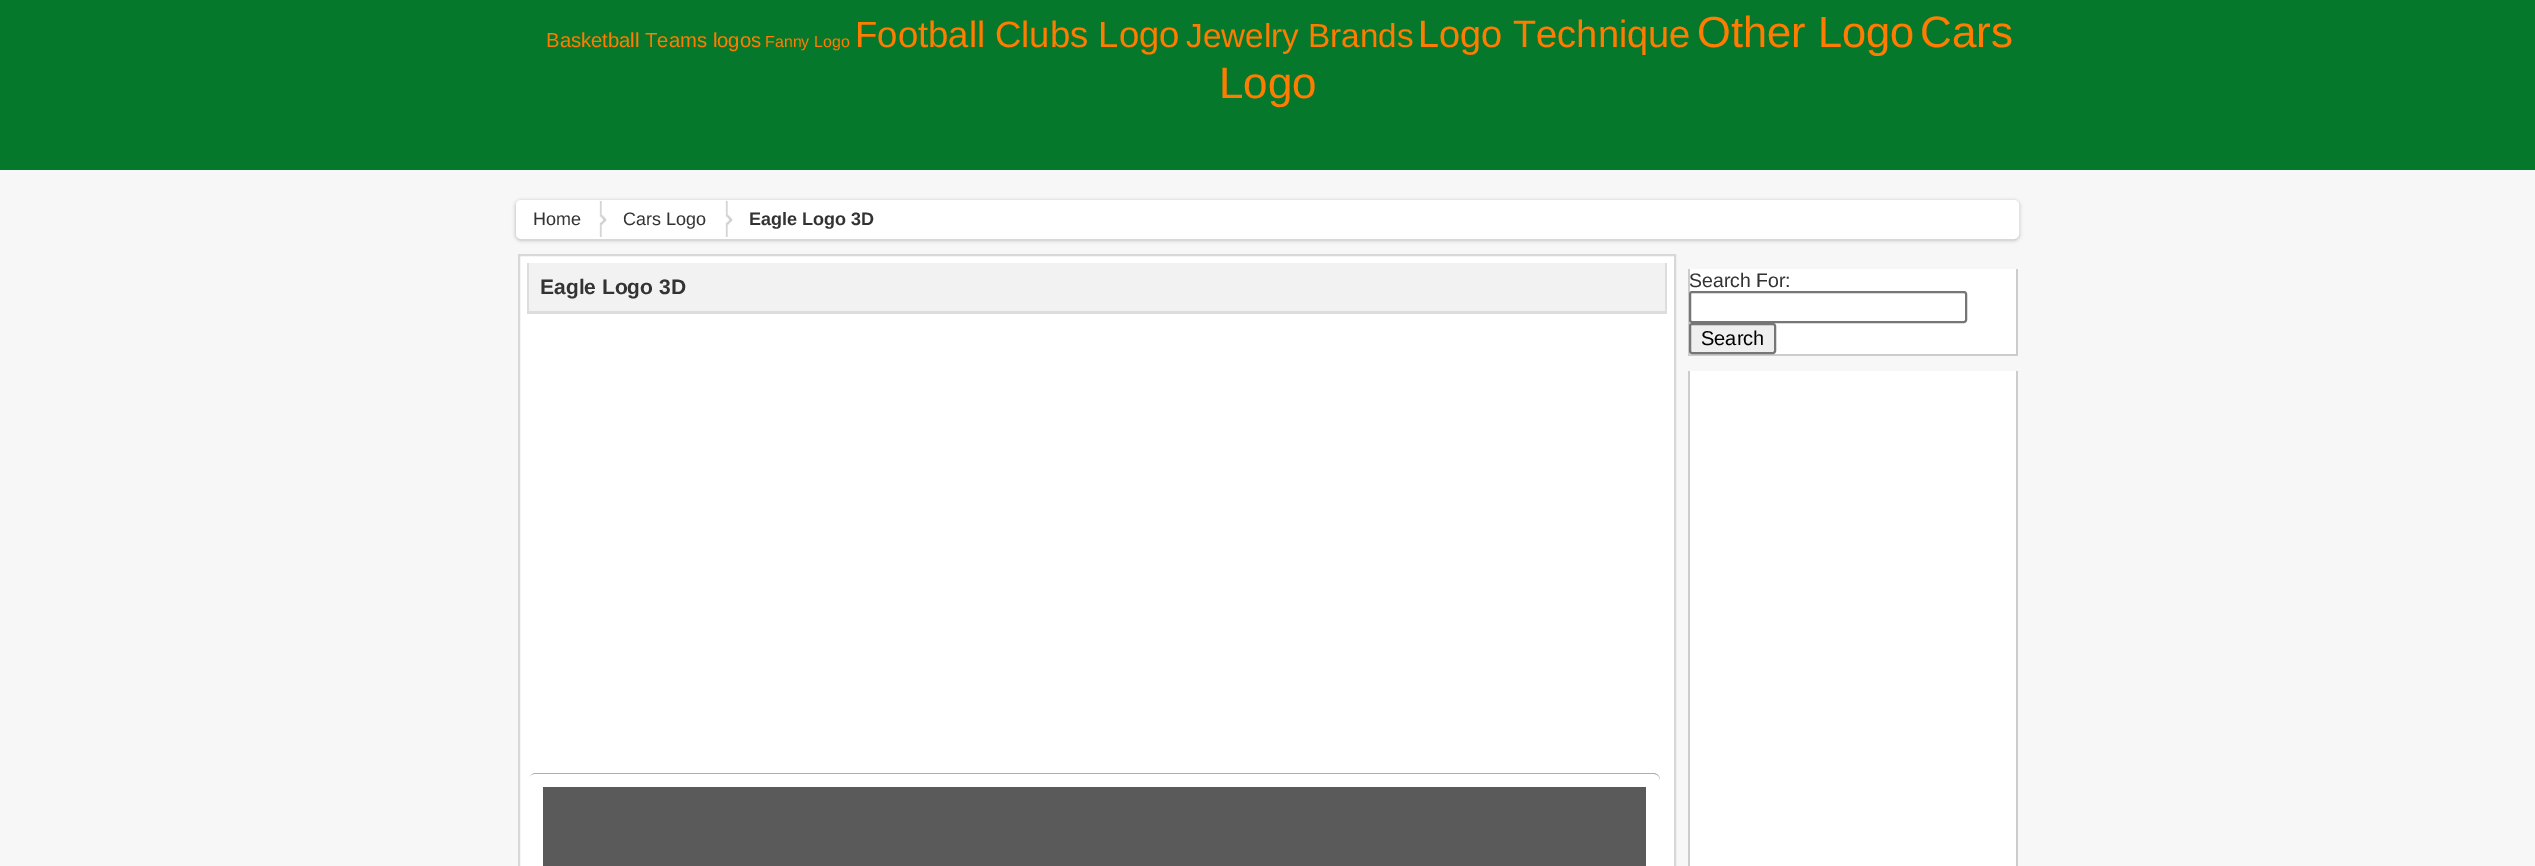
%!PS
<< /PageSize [2535 866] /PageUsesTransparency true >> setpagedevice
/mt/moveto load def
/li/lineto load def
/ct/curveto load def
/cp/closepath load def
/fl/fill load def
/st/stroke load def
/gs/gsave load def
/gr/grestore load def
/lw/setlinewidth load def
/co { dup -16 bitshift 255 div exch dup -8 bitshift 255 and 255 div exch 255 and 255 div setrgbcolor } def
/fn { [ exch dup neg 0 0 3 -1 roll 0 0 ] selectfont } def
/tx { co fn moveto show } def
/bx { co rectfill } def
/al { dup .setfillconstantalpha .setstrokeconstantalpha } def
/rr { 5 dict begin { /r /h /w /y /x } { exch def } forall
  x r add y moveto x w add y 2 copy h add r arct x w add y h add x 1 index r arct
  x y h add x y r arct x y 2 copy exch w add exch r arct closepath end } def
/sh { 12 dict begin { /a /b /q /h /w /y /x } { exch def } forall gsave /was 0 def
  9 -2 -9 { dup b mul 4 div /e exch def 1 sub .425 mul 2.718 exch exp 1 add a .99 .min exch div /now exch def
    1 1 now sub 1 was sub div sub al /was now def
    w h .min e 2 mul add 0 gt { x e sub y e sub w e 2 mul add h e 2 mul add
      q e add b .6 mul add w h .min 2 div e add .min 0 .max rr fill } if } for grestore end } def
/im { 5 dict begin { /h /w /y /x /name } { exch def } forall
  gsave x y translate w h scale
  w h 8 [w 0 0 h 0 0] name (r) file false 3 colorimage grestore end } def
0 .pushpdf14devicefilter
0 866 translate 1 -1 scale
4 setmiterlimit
0 0 2535 866 16#F7F7F7 bx
0 0 2535 170 16#05782B bx
16#000000 co
516 201 1503 39 5 2 .3 sh
16#FFFFFF co
517 201 1501 37 4 rr gs fl gr
2 lw
st
(media/1.raw) 599 201 8 36 im
(media/1.raw) 725 201 8 36 im
519 255 mt 1675 255 li 1675 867 li 519 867 li cp gs fl gr
16#D8D8D8 co
st
529 263 1136 48 16#F2F2F2 bx
1665 263 2 51 16#DDDDDD bx
527 311 1140 3 16#DDDDDD bx
527 263 2 51 16#DDDDDD bx
16#909193 co
534 774 mt 1654 774 li 1658 774 1660 777 1660 780 ct 1660 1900 li 1659 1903 li 1660 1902 1661 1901 1661 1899 ct 1661 779 li 1661 776 1658 773 1655 773 ct 534 773 li 531 773 528 776 528 779 ct 528 780 li 528 777 531 774 534 774 ct cp fl
16#FFFFFF co
528 772 1133 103 7 rr st
543 787 1103 79 16#5A5A5A bx
1690 269 326 85 16#FFFFFF bx
2016 269 2 87 16#CCCCCC bx
1688 354 330 2 16#CCCCCC bx
1688 269 2 87 16#CCCCCC bx
16#FFFFFF co
1690 292 276 30 2 rr gs fl gr
16#767676 co
st
16#EFEFEF co
1690 324 85 29 2 rr gs fl gr
16#767676 co
st
1690 371 326 495 16#FFFFFF bx
2016 371 2 495 16#CCCCCC bx
1688 371 2 495 16#CCCCCC bx
(Basketball Teams logos) 546 47 /LiberationSans-Regular 20.25 16#FF7C00 tx
(Fanny Logo) 765 47 /LiberationSans-Regular 16 16#FF7C00 tx
(Football Clubs Logo) 855 47 /LiberationSans-Regular 36.5 16#FF7C00 tx
(Jewelry Brands) 1186 47 /LiberationSans-Regular 33.25 16#FF7C00 tx
(Logo Technique) 1418 47 /LiberationSans-Regular 38 16#FF7C00 tx
(Other Logo) 1697 47 /LiberationSans-Regular 43.5 16#FF7C00 tx
(Сars) 1920 47 /LiberationSans-Regular 44 16#FF7C00 tx
(Logo) 1219 98 /LiberationSans-Regular 44 16#FF7C00 tx
(Home) 533 225 /LiberationSans-Regular 18 16#333333 tx
(Сars Logo) 623 225 /LiberationSans-Regular 18 16#333333 tx
(Eagle Logo 3D) 749 225 /LiberationSans-Bold 18 16#333333 tx
(Eagle Logo 3D) 540 294 /LiberationSans-Bold 21 16#333333 tx
(Search For:) 1689 287 /LiberationSans-Regular 19.5 16#333333 tx
(Search) 1701 345 /LiberationSans-Regular 20 16#000000 tx
.poppdf14devicefilter showpage
